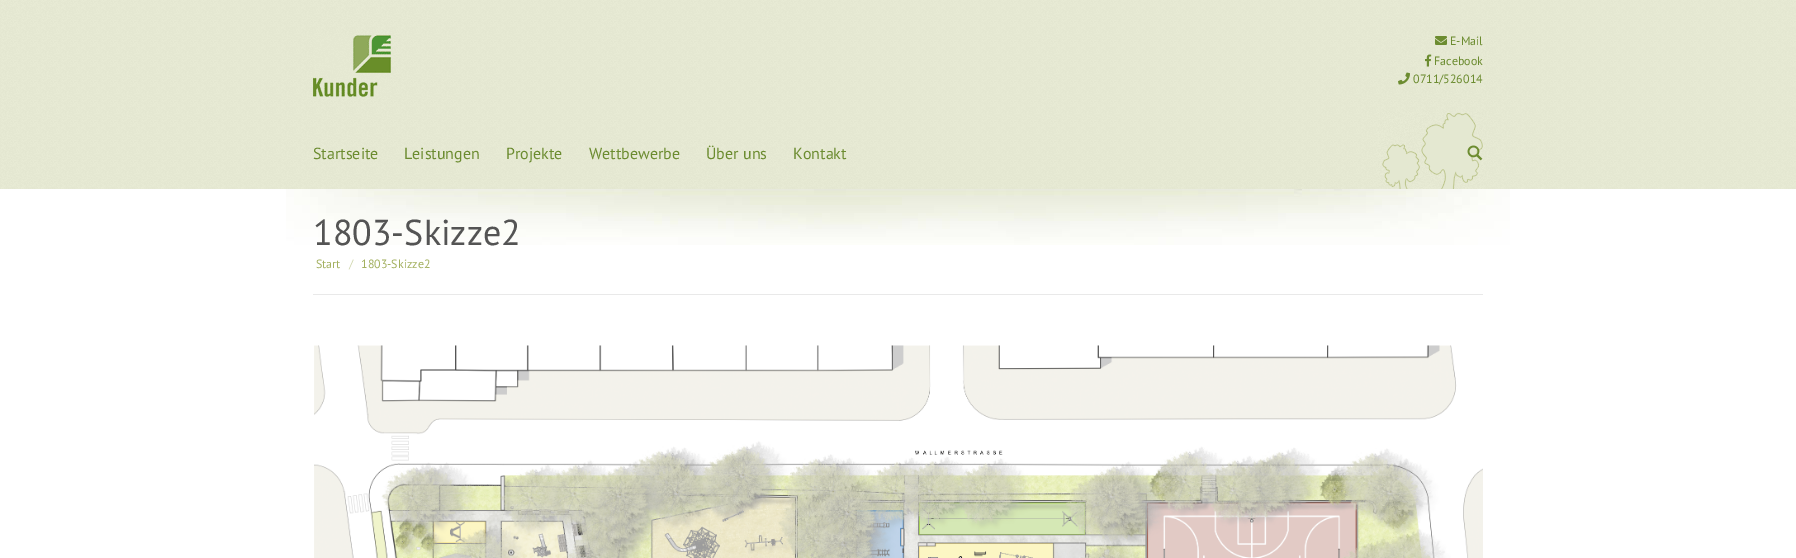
%!PS
<< /PageSize [1796 558] >> setpagedevice
/co { dup -16 bitshift 255 div exch dup -8 bitshift 255 and 255 div exch 255 and 255 div setrgbcolor } def
/fn { [ exch dup neg 0 0 3 -1 roll 0 0 ] selectfont } def
/tx { co fn moveto show } def
/bx { co rectfill } def
/im { 5 dict begin { /h /w /y /x /name } { exch def } forall
  gsave x y translate w h scale
  w h 8 [w 0 0 h 0 0] name (r) file false 3 colorimage grestore end } def
0 558 translate 1 -1 scale
4 setmiterlimit
0 0 1796 558 16#FFFFFF bx
(media/1.raw) 0 0 1796 189 im
(media/2.raw) 313 35 78 62 im
(media/3.raw) 1435 36 12 9 im
(media/4.raw) 1425 54 7 13 im
(media/5.raw) 1398 72 12 13 im
(media/7.raw) 1378 112 105 77 im
(media/6.raw) 1467 145 16 16 im
(media/8.raw) 286 189 1224 56 im
313 294 1170 1 16#E9E9E9 bx
(media/9.raw) 314 345 1169 213 im
(E-Mail) 1450 45 /PTSans-Regular 12 16#6C8C30 tx
(Facebook) 1434 65 /PTSans-Regular 12 16#6C8C30 tx
(0711/526014) 1413 83 /PTSans-Regular 12 16#6C8C30 tx
(Startseite) 313 159 /PTSans-Regular 16 16#6C8C30 tx
(Leistungen) 404 159 /PTSans-Regular 16 16#6C8C30 tx
(Projekte) 506 159 /PTSans-Regular 16 16#6C8C30 tx
(Wettbewerbe) 589 159 /PTSans-Regular 16 16#6C8C30 tx
(Über uns) 706 159 /PTSans-Regular 16 16#6C8C30 tx
(Kontakt) 793 159 /PTSans-Regular 16 16#6C8C30 tx
(1803-Skizze2) 313 245 /PTSans-Regular 36 16#545454 tx
(Start) 316 268 /PTSans-Regular 12 16#A4B161 tx
(/) 349 268 /PTSans-Regular 12 16#D2D8B0 tx
(1803-Skizze2) 361 268 /PTSans-Regular 12 16#A4B161 tx
showpage
